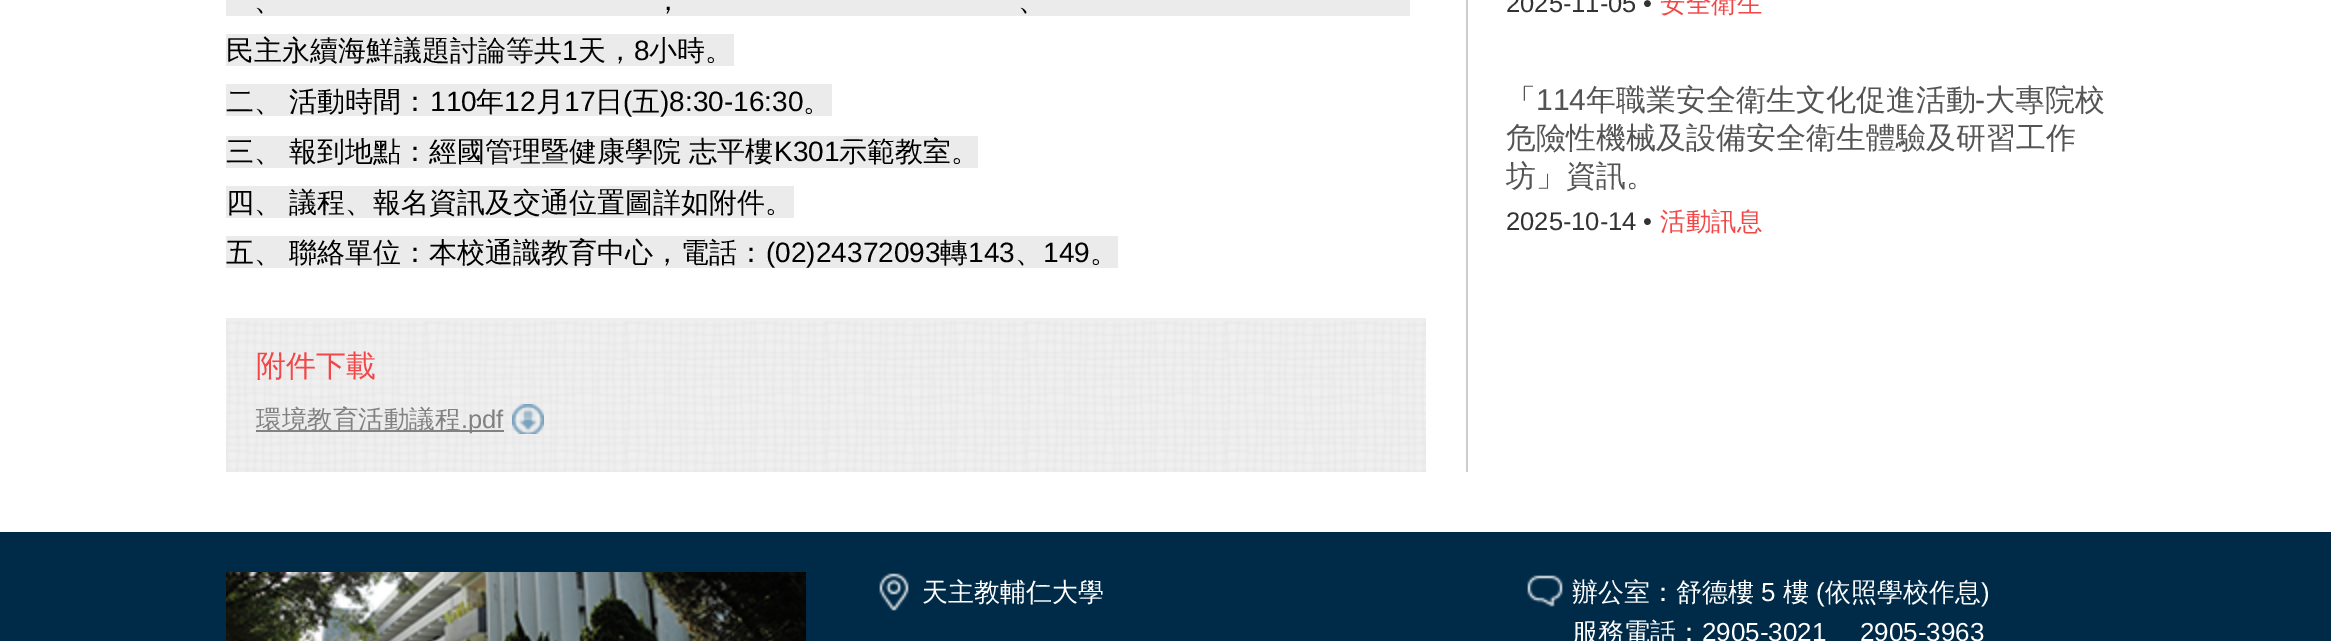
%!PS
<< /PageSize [2331 641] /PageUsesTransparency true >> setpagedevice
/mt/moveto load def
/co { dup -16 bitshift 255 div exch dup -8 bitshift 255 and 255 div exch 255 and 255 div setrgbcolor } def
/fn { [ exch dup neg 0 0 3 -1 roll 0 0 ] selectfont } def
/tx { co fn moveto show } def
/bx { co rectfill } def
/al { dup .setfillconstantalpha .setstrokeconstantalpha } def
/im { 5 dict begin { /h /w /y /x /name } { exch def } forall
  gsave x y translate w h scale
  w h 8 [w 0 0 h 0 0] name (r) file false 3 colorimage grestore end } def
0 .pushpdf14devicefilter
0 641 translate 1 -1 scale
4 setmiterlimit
0 0 2331 641 16#FFFFFF bx
1466 0 2 472 16#CCCCCC bx
226 0 1184 16 16#EBEBEB bx
226 34 508 32 16#EBEBEB bx
226 84 606 32 16#EBEBEB bx
226 136 752 32 16#EBEBEB bx
226 186 568 32 16#EBEBEB bx
226 236 892 32 16#EBEBEB bx
226 318 1200 3 16#EEEEEE bx
(media/1.raw) 226 321 1200 151 im
0.7 al
256 430 248 2 16#545454 bx
1 al
(media/2.raw) 512 404 32 30 im
0 532 2331 109 16#002B48 bx
(media/3.raw) 226 572 580 69 im
(media/4.raw) 879 573 30 38 im
(media/5.raw) 1527 575 36 32 im
/WenQuanYiZenHei-Medium 28 fn
16#000000 co
254 10 mt -1 0 32 (、) widthshow
654 10 mt -1 0 32 (，) widthshow
1018 10 mt -1 0 32 (、) widthshow
(民主永續海鮮議題討論等共) 226 60 /WenQuanYiZenHei-Medium 28 16#000000 tx
(1) 562 60 /LiberationSans-Regular 28 16#000000 tx
(天，) 578 60 /WenQuanYiZenHei-Medium 28 16#000000 tx
(8) 634 60 /LiberationSans-Regular 28 16#000000 tx
(小時。) 649 60 /WenQuanYiZenHei-Medium 28 16#000000 tx
226 111 mt -1 0 32 (二、 活動時間：) widthshow
(110) 430 111 /LiberationSans-Regular 28 16#000000 tx
(年) 476 111 /WenQuanYiZenHei-Medium 28 16#000000 tx
(12) 504 111 /LiberationSans-Regular 28 16#000000 tx
(月) 536 111 /WenQuanYiZenHei-Medium 28 16#000000 tx
(17) 564 111 /LiberationSans-Regular 28 16#000000 tx
(日) 595 111 /WenQuanYiZenHei-Medium 28 16#000000 tx
(\() 623 111 /LiberationSans-Regular 28 16#000000 tx
(五) 632 111 /WenQuanYiZenHei-Medium 28 16#000000 tx
(\)8:30-16:30) 660 111 /LiberationSans-Regular 28 16#000000 tx
(。) 803 111 /WenQuanYiZenHei-Medium 28 16#000000 tx
226 161 mt -1 0 32 (三、 報到地點：經國管理暨健康學院 志平樓) widthshow
(K301) 774 161 /LiberationSans-Regular 28 16#000000 tx
(示範教室。) 839 161 /WenQuanYiZenHei-Medium 28 16#000000 tx
226 212 mt -1 0 32 (四、 議程、報名資訊及交通位置圖詳如附件。) widthshow
226 262 mt -1 0 32 (五、 聯絡單位：本校通識教育中心，電話：) widthshow
(\(02\)24372093) 766 262 /LiberationSans-Regular 28 16#000000 tx
(轉) 940 262 /WenQuanYiZenHei-Medium 28 16#000000 tx
(143) 968 262 /LiberationSans-Regular 28 16#000000 tx
(、) 1015 262 /WenQuanYiZenHei-Medium 28 16#000000 tx
(149) 1043 262 /LiberationSans-Regular 28 16#000000 tx
(。) 1090 262 /WenQuanYiZenHei-Medium 28 16#000000 tx
(附件下載) 256 376 /WenQuanYiZenHei-Medium 30 16#F34747 tx
(環境教育活動議程) 256 428 /WenQuanYiZenHei-Medium 25.5 16#818181 tx
(.pdf) 461 428 /LiberationSans-Regular 25.5 16#818181 tx
(2025-11-05 •) 1506 12 /LiberationSans-Regular 25.5 16#333333 tx
(安全衛生) 1660 12 /WenQuanYiZenHei-Medium 25.5 16#F34747 tx
(「) 1506 110 /WenQuanYiZenHei-Medium 30 16#545454 tx
(114) 1536 110 /LiberationSans-Regular 30 16#545454 tx
(年職業安全衛生文化促進活動) 1586 110 /WenQuanYiZenHei-Medium 30 16#545454 tx
(-) 1975 110 /LiberationSans-Regular 30 16#545454 tx
(大專院校) 1985 110 /WenQuanYiZenHei-Medium 30 16#545454 tx
(危險性機械及設備安全衛生體驗及研習工作) 1506 148 /WenQuanYiZenHei-Medium 30 16#545454 tx
(坊」資訊。) 1506 186 /WenQuanYiZenHei-Medium 30 16#545454 tx
(2025-10-14 •) 1506 230 /LiberationSans-Regular 25.5 16#333333 tx
(活動訊息) 1660 230 /WenQuanYiZenHei-Medium 25.5 16#F34747 tx
(天主教輔仁大學) 922 601 /WenQuanYiZenHei-Medium 26 16#FFFFFF tx
(辦公室：舒德樓) 1572 601 /WenQuanYiZenHei-Medium 26 16#FFFFFF tx
(5) 1761 601 /LiberationSans-Regular 26 16#FFFFFF tx
(樓) 1783 601 /WenQuanYiZenHei-Medium 26 16#FFFFFF tx
(\() 1816 601 /LiberationSans-Regular 26 16#FFFFFF tx
(依照學校作息) 1825 601 /WenQuanYiZenHei-Medium 26 16#FFFFFF tx
(\)) 1981 601 /LiberationSans-Regular 26 16#FFFFFF tx
(服務電話：) 1572 641 /WenQuanYiZenHei-Medium 26 16#FFFFFF tx
(2905-3021) 1702 641 /LiberationSans-Regular 26 16#FFFFFF tx
(2905-3963) 1860 641 /LiberationSans-Regular 26 16#FFFFFF tx
.poppdf14devicefilter showpage
